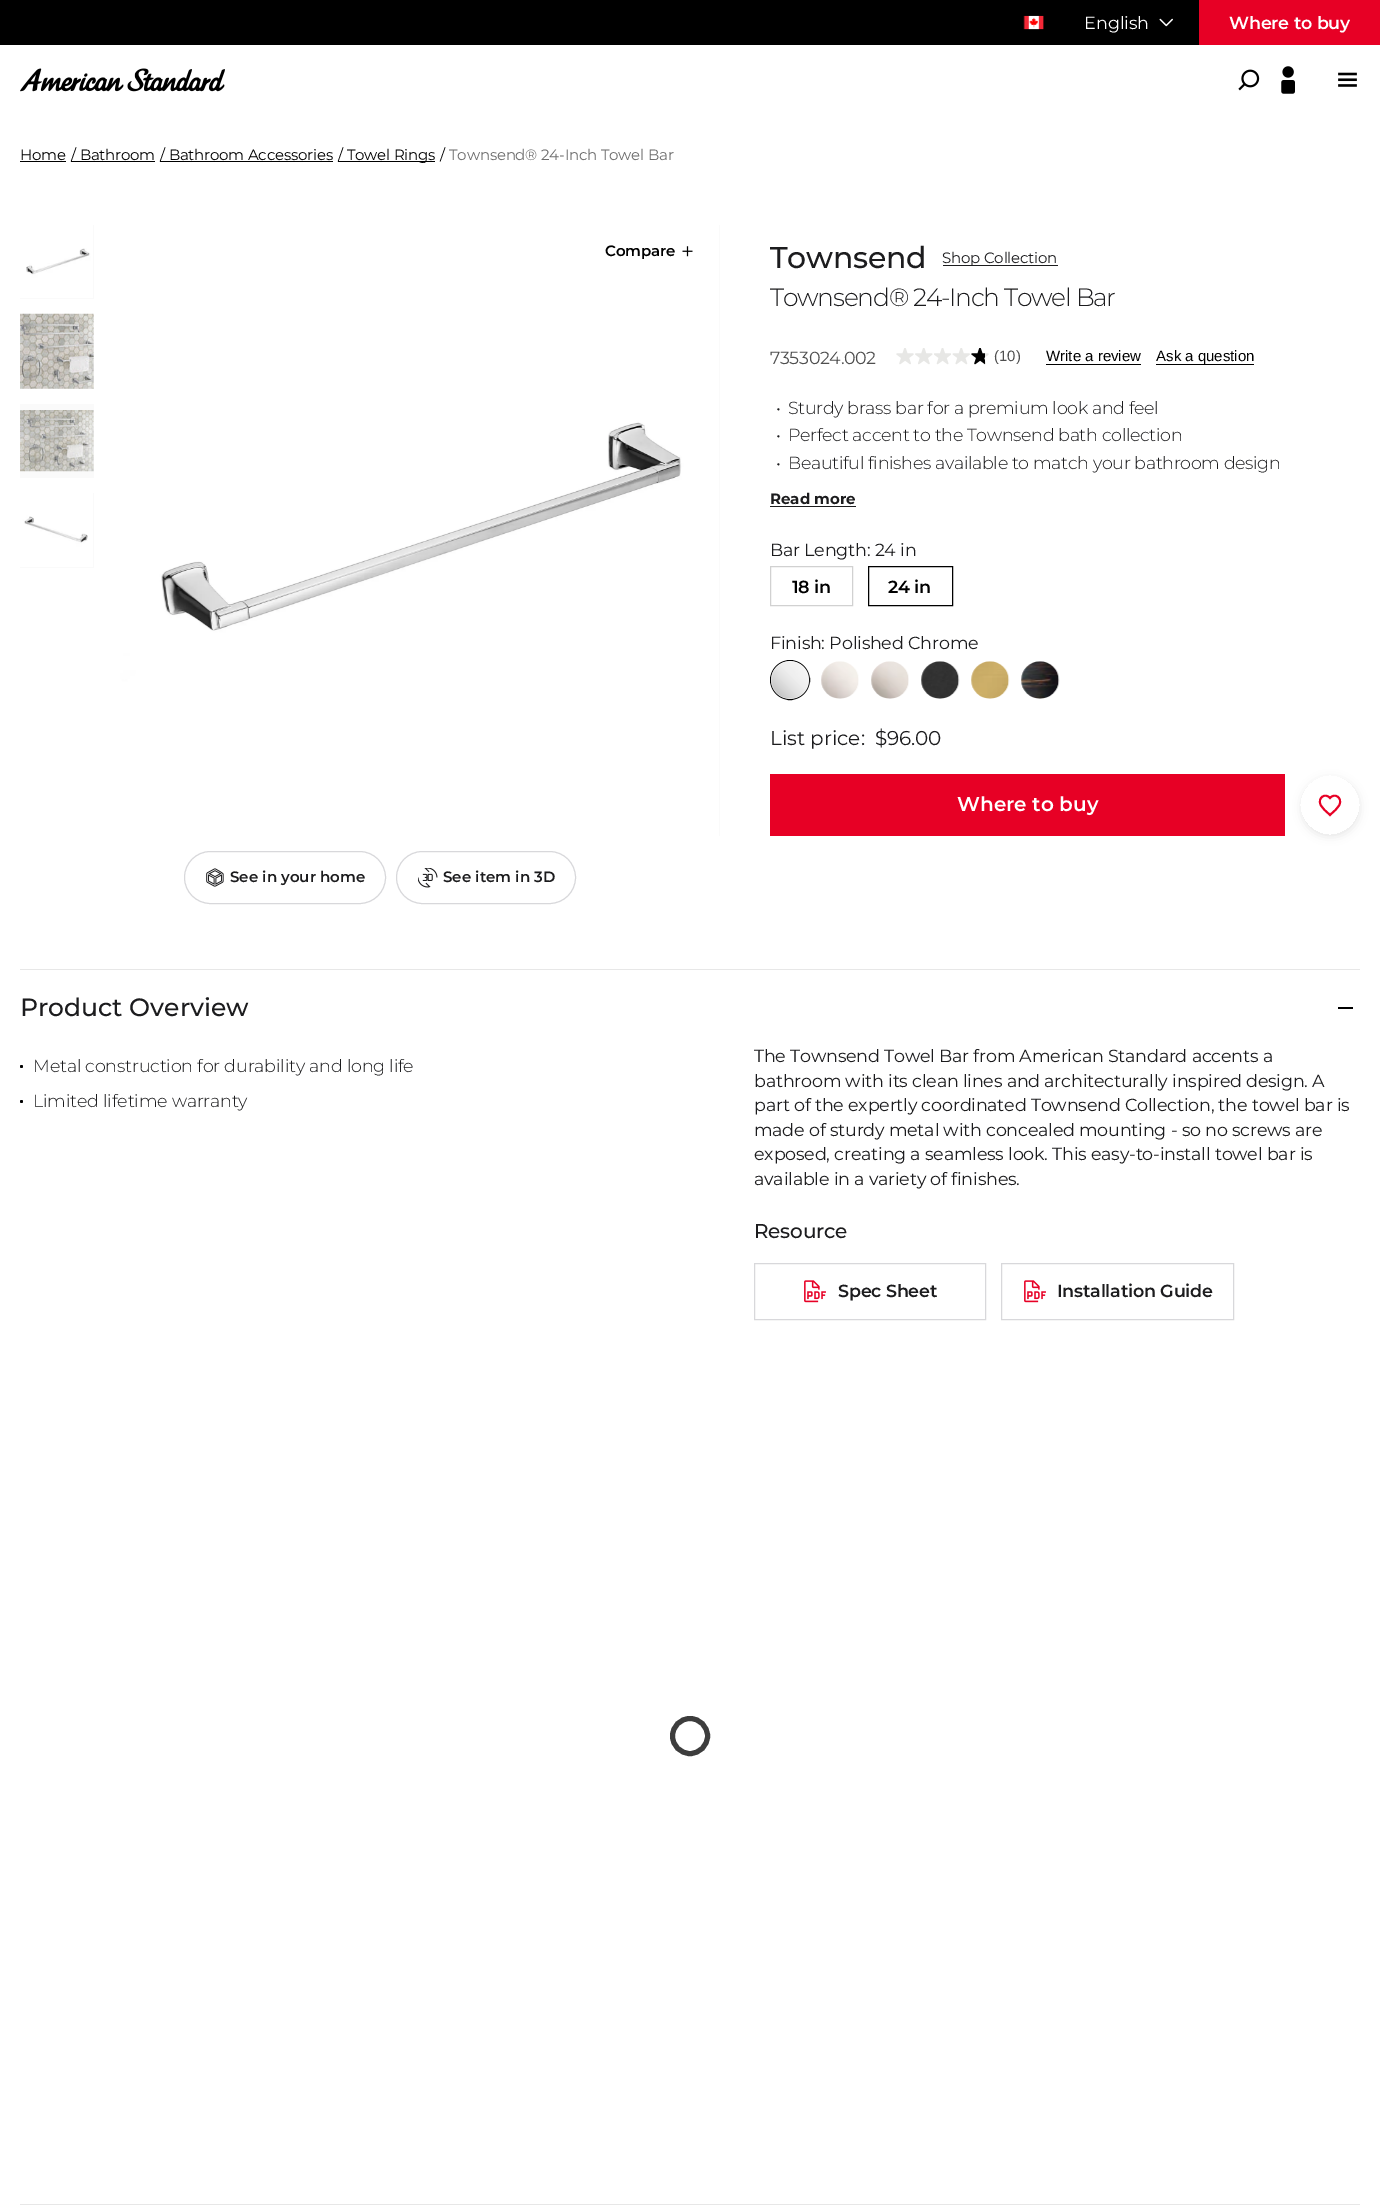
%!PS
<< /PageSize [1380 2206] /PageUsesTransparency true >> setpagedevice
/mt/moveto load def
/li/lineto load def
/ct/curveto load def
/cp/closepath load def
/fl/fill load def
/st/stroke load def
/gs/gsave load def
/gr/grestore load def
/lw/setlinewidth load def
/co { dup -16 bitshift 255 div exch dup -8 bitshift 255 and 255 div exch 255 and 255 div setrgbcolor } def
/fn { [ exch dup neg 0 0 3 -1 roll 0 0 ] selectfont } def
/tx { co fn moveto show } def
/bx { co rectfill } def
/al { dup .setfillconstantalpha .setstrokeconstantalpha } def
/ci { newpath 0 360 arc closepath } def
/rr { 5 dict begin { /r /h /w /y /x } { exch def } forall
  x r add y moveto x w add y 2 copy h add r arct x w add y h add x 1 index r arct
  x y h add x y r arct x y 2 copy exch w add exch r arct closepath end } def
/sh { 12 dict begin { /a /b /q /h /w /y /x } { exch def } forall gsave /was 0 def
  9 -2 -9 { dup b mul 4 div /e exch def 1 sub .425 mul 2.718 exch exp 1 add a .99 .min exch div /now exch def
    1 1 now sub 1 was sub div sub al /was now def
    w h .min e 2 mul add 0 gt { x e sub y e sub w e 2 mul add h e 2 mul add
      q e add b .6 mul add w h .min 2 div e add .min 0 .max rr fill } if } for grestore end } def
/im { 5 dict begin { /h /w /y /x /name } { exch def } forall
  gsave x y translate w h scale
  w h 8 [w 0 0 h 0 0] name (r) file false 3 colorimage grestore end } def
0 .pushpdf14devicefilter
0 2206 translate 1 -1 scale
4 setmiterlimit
0 0 1380 2206 16#FFFFFF bx
0 0 1199 45 16#000000 bx
(media/1.raw) 1023 15 21 15 im
(media/2.raw) 1159 18 14 9 im
1199 0 181 45 16#E70025 bx
(media/3.raw) 20 68 205 24 im
(media/4.raw) 1238 69 22 22 im
(media/5.raw) 1281 66 14 28 im
(media/6.raw) 1338 72 19 15 im
20 161 46 1 16#000000 bx
71 161 84 1 16#000000 bx
160 161 173 1 16#000000 bx
338 161 97 1 16#000000 bx
20 225 74 74 16#FAFAFA bx
(media/7.raw) 20 225 73 73 im
20 314 74 75 16#FAFAFA bx
(media/8.raw) 20 313 74 76 im
20 404 74 74 16#FAFAFA bx
(media/9.raw) 20 410 74 62 im
20 493 74 75 16#FAFAFA bx
(media/10.raw) 20 493 73 74 im
719 225 1 611 16#FAFAFA bx
(media/11.raw) 109 225 610 611 im
(media/12.raw) 682 246 11 11 im
16#D8D8DB co
184.5 851.5 201 52 26 rr st
(media/13.raw) 206 868 18 19 im
396.5 851.5 179 52 26 rr st
(media/14.raw) 418 868 20 20 im
943 265 115 1 16#1C1C1E bx
(media/15.raw) 896 348 18 17 im
(media/16.raw) 915 348 18 17 im
(media/17.raw) 934 348 17 17 im
(media/18.raw) 952 348 18 17 im
(media/19.raw) 971 348 18 17 im
1046 364 95 1 16#000000 bx
1156 364 98 1 16#000000 bx
770 506 86 1 16#1C1C1E bx
16#D1D1D1 co
770.5 566.5 82 39 rectstroke
16#000000 co
868.5 566.5 84 39 rectstroke
790 680 19.5 ci st
(media/20.raw) 771 661 39 38 im
(media/21.raw) 821 661 38 38 im
(media/22.raw) 871 661 38 38 im
(media/23.raw) 921 661 39 38 im
(media/24.raw) 971 661 39 38 im
(media/25.raw) 1021 661 39 38 im
770 774 515 62 16#E70025 bx
gs
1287 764 mt 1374 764 li 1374 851 li 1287 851 li cp 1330 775 mt 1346.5 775 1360 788.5 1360 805 ct 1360 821.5 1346.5 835 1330 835 ct 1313.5 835 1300 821.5 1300 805 ct 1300 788.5 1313.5 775 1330 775 ct cp eoclip newpath
16#000000 co
1303 780 55 55 27.5 5 .12 sh
gr
1.9 lw
1330 815 mt 1326.5 811.5 1322 808.5 1320.5 804.5 ct 1317.5 797.5 1325.5 792.5 1330 798 ct 1334.5 792.5 1342.5 797.5 1339.5 804.5 ct 1338 808.5 1333.5 811.5 1330 815 ct cp st
20 969 1340 1 16#E7E7E7 bx
20 2204 1340 1 16#E7E7E7 bx
1338 1007 15 2 16#000000 bx
21.5 1066.5 1.5 ci fl
21.5 1101.5 1.5 ci fl
16#D8D8DB co
1 lw
754.5 1263.5 231 56 rectstroke
(media/26.raw) 804 1280 22 23 im
1001.5 1263.5 232 56 rectstroke
(media/26.raw) 1024 1280 22 23 im
16#3D3D3D co
5 lw
690 1736 17.5 ci st
(English) 1084 29 /Montserrat-Regular 17.5 16#FFFFFF tx
/Montserrat-SemiBold 17.5 fn
1229 29 mt -.2 0 (Where to buy) ashow
/Montserrat-Regular 15 fn
16#000000 co
20 160 mt -.2 0 (Home) ashow
71 160 mt -.2 0 (/ Bathroom) ashow
160 160 mt -.2 0 (/ Bathroom Accessories) ashow
338 160 mt -.2 0 (/ Towel Rings) ashow
440 160 mt -.2 0 (/) ashow
16#6D6D6D co
449 160 mt -.2 0 (Townsend® 24-Inch Towel Bar) ashow
/Montserrat-SemiBold 15 fn
16#000000 co
605 256 mt -.2 0 (Compare) ashow
(See in your home) 230 882 /Montserrat-SemiBold 15 16#1C1C1E tx
(See item in 3D) 443 882 /Montserrat-SemiBold 15 16#1C1C1E tx
/Montserrat-Medium 30 fn
770 268 mt -.2 0 (Townsend) ashow
/Montserrat-Regular 15 fn
942 263 mt -.2 0 (Shop Collection) ashow
/Montserrat-Light 25 fn
770 306 mt -1.25 0 (Townsend® 24-Inch Towel Bar) ashow
/Montserrat-Regular 17.5 fn
16#4F4F4F co
770 364 mt -.35 0 (7353024.002) ashow
(\(10\)) 994 361 /LiberationSans-Regular 15 16#4F4F4F tx
(Write a review) 1046 361 /LiberationSans-Regular 15 16#000000 tx
(Ask a question) 1156 361 /LiberationSans-Regular 15 16#000000 tx
/Montserrat-Light 17.5 fn
16#1C1C1E co
776 414 mt -.35 0 (•) ashow
788 414 mt -.35 0 (Sturdy brass bar for a premium look and feel) ashow
776 441 mt -.35 0 (•) ashow
788 441 mt -.35 0 (Perfect accent to the Townsend bath collection) ashow
776 469 mt -.35 0 (•) ashow
788 469 mt -.35 0 (Beautiful finishes available to match your bathroom design) ashow
(Read more) 770 504 /Montserrat-Bold 15 16#1C1C1E tx
/Montserrat-Regular 17.5 fn
770 556 mt -.2 0 (Bar Length: 24 in) ashow
/Montserrat-SemiBold 17.5 fn
16#000000 co
792 593 mt -.2 0 (18 in) ashow
888 593 mt -.2 0 (24 in) ashow
/Montserrat-Regular 17.5 fn
16#1C1C1E co
770 649 mt -.2 0 (Finish: Polished Chrome) ashow
(List price:) 770 745 /Montserrat-Regular 20 16#1C1C1E tx
875 745 mt -.2 0 ($96.00) ashow
(Where to buy) 957 811 /Montserrat-SemiBold 20 16#FFFFFF tx
(Product Overview) 20 1016 /Montserrat-Medium 25 16#1C1C1E tx
/Montserrat-Light 17.5 fn
33 1072 mt -.2 0 (Metal construction for durability and long life) ashow
33 1107 mt -.2 0 (Limited lifetime warranty) ashow
/Montserrat-Regular 17.5 fn
754 1062 mt -.2 0 (The Townsend Towel Bar from American Standard accents a) ashow
754 1087 mt -.2 0 (bathroom with its clean lines and architecturally inspired design. A) ashow
754 1111 mt -.2 0 (part of the expertly coordinated Townsend Collection, the towel bar is) ashow
754 1136 mt -.2 0 (made of sturdy metal with concealed mounting - so no screws are) ashow
754 1160 mt -.2 0 (exposed, creating a seamless look. This easy-to-install towel bar is) ashow
754 1185 mt -.2 0 (available in a variety of finishes.) ashow
/Montserrat-Medium 20 fn
754 1238 mt -.2 0 (Resource) ashow
/Montserrat-SemiBold 17.5 fn
838 1297 mt -.2 0 (Spec Sheet) ashow
1057 1297 mt -.2 0 (Installation Guide) ashow
.poppdf14devicefilter showpage
